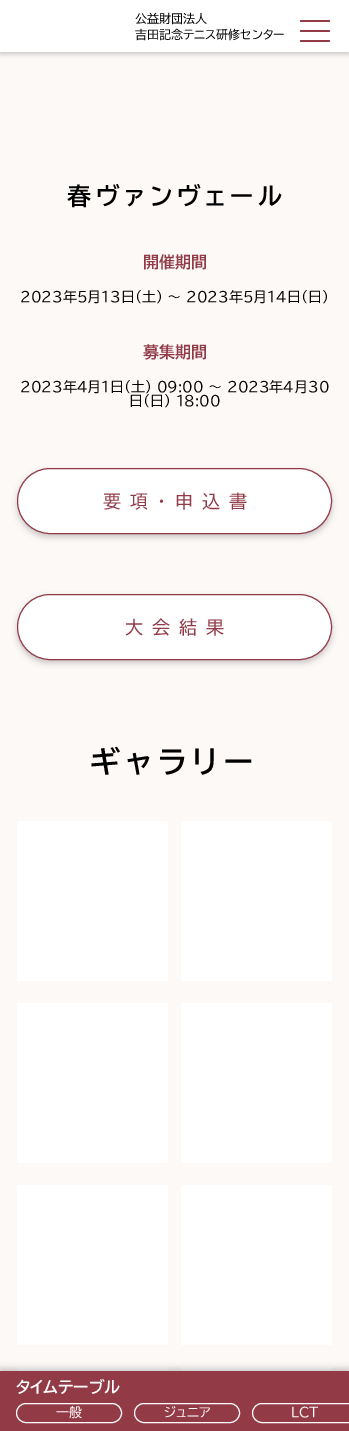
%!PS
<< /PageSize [349 1431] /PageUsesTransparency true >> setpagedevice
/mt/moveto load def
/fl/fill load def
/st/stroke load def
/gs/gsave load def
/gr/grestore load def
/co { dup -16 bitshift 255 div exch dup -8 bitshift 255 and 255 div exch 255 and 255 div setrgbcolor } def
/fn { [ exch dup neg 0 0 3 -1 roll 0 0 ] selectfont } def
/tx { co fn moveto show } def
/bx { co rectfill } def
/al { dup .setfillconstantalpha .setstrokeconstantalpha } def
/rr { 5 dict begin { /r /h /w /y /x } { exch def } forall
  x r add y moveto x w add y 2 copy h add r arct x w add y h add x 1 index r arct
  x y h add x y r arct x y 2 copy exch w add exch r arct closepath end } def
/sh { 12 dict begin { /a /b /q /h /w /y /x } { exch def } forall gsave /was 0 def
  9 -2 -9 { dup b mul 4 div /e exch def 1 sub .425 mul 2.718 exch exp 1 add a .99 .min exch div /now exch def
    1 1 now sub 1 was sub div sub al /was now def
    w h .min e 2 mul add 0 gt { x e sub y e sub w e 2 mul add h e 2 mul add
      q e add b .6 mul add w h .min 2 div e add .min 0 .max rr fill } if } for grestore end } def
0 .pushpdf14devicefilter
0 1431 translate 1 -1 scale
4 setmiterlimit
0 0 349 1431 16#FDF9F7 bx
16#000000 co
0 2 349 52 0 2.5 .2 sh
0 0 349 52 16#FFFFFF bx
16#933A47 co
300 20 30 2 1 rr fl
300 30 30 2 1 rr fl
300 40 30 2 1 rr fl
16#000000 co
17 471 315 66 33 3 .2 sh
16#FFFFFF co
17.5 468.5 314 65 32.5 rr gs fl gr
16#923B48 co
st
16#000000 co
17 597 315 66 33 3 .2 sh
16#FFFFFF co
17.5 594.5 314 65 32.5 rr gs fl gr
16#923B48 co
st
17 821 151 160 16#FFFFFF bx
181 821 151 160 16#FFFFFF bx
17 1003 151 160 16#FFFFFF bx
181 1003 151 160 16#FFFFFF bx
17 1185 151 160 16#FFFFFF bx
181 1185 151 160 16#FFFFFF bx
17 1367 151 4 16#FFFFFF bx
181 1367 151 4 16#FFFFFF bx
16#000000 co
0 1368 349 60 0 3 .2 sh
0 1371 349 60 16#933A47 bx
16#FFFFFF co
16.5 1403.5 105 19 9.5 rr st
134.5 1403.5 105 19 9.5 rr st
252.5 1403.5 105 19 9.5 rr st
(公益財団法人) 135 23 /BIZUDPGothic-Regular 12 16#000000 tx
(吉田記念テニス研修センター) 135 39 /BIZUDPGothic-Regular 12 16#000000 tx
/BIZUDPGothic-Bold 24 fn
67 205 mt 4.75 0 (春ヴァンヴェール) ashow
(開催期間) 143 268 /BIZUDPGothic-Bold 16 16#923B48 tx
(2023年5月13日（土） ～ 2023年5月14日（日）) 20 302 /BIZUDPGothic-Regular 14 16#000000 tx
(募集期間) 143 358 /BIZUDPGothic-Bold 16 16#923B48 tx
(2023年4月1日（土） 09:00 ～ 2023年4月30) 20 392 /BIZUDPGothic-Regular 14 16#000000 tx
(日（日） 18:00) 129 406 /BIZUDPGothic-Regular 14 16#000000 tx
/BIZUDPGothic-Regular 18 fn
16#923B48 co
103 508 mt 9 0 (要項・申込書) ashow
125 634 mt 9 0 (大会結果) ashow
/BIZUDPGothic-Bold 30 fn
16#000000 co
90 773 mt 6 0 (ギャラリー) ashow
(タイムテーブル) 16 1393 /BIZUDPGothic-Bold 16 16#FFFFFF tx
(一般) 56 1417 /BIZUDPGothic-Regular 13 16#FFFFFF tx
(ジュニア) 164 1417 /BIZUDPGothic-Regular 13 16#FFFFFF tx
(LCT) 291 1417 /BIZUDPGothic-Regular 13 16#FFFFFF tx
.poppdf14devicefilter showpage
